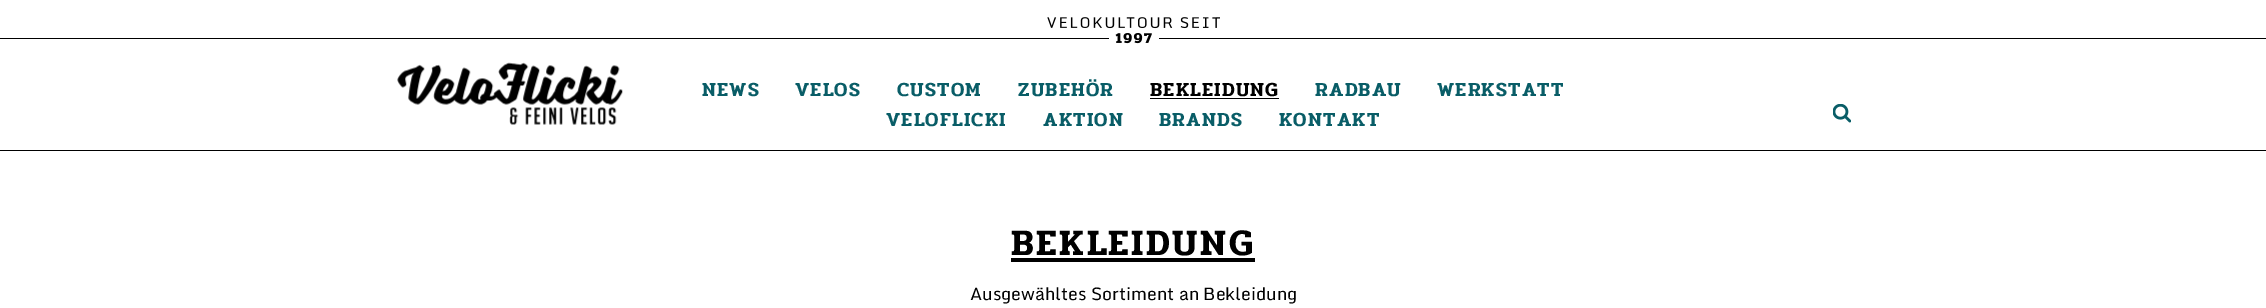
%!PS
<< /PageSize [2266 308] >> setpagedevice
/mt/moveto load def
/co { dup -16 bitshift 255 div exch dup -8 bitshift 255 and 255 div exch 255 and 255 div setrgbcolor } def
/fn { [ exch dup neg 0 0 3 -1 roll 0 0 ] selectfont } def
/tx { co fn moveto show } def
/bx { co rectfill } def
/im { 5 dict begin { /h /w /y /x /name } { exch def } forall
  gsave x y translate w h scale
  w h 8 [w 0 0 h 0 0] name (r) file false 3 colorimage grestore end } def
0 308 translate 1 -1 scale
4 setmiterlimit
0 0 2266 308 16#FFFFFF bx
0 150 2266 1 16#000000 bx
0 38 2266 1 16#000000 bx
(media/1.raw) 1047 17 173 27 im
(media/2.raw) 397 62 226 63 im
1150 98 129 1 16#000000 bx
(media/3.raw) 1833 104 18 19 im
1011 258 244 4 16#000000 bx
/Pridi-SemiBold 20 fn
16#095D67 co
702 96 mt 1.25 0 (NEWS) ashow
795 96 mt 1.25 0 (VELOS) ashow
897 96 mt 1.25 0 (CUSTOM) ashow
1018 96 mt 1.25 0 (ZUBEHÖR) ashow
16#000000 co
1150 96 mt 1.25 0 (BEKLEIDUNG) ashow
16#095D67 co
1315 96 mt 1.25 0 (RADBAU) ashow
1437 96 mt 1.25 0 (WERKSTATT) ashow
886 126 mt 1.25 0 (VELOFLICKI) ashow
1043 126 mt 1.25 0 (AKTION) ashow
1159 126 mt 1.25 0 (BRANDS) ashow
1279 126 mt 1.25 0 (KONTAKT) ashow
/Pridi-SemiBold 37.5 fn
16#000000 co
1011 255 mt 2.5 0 (BEKLEIDUNG) ashow
(Ausgewähltes Sortiment an Bekleidung) 970 300 /Monda-Regular 17.5 16#000000 tx
showpage
